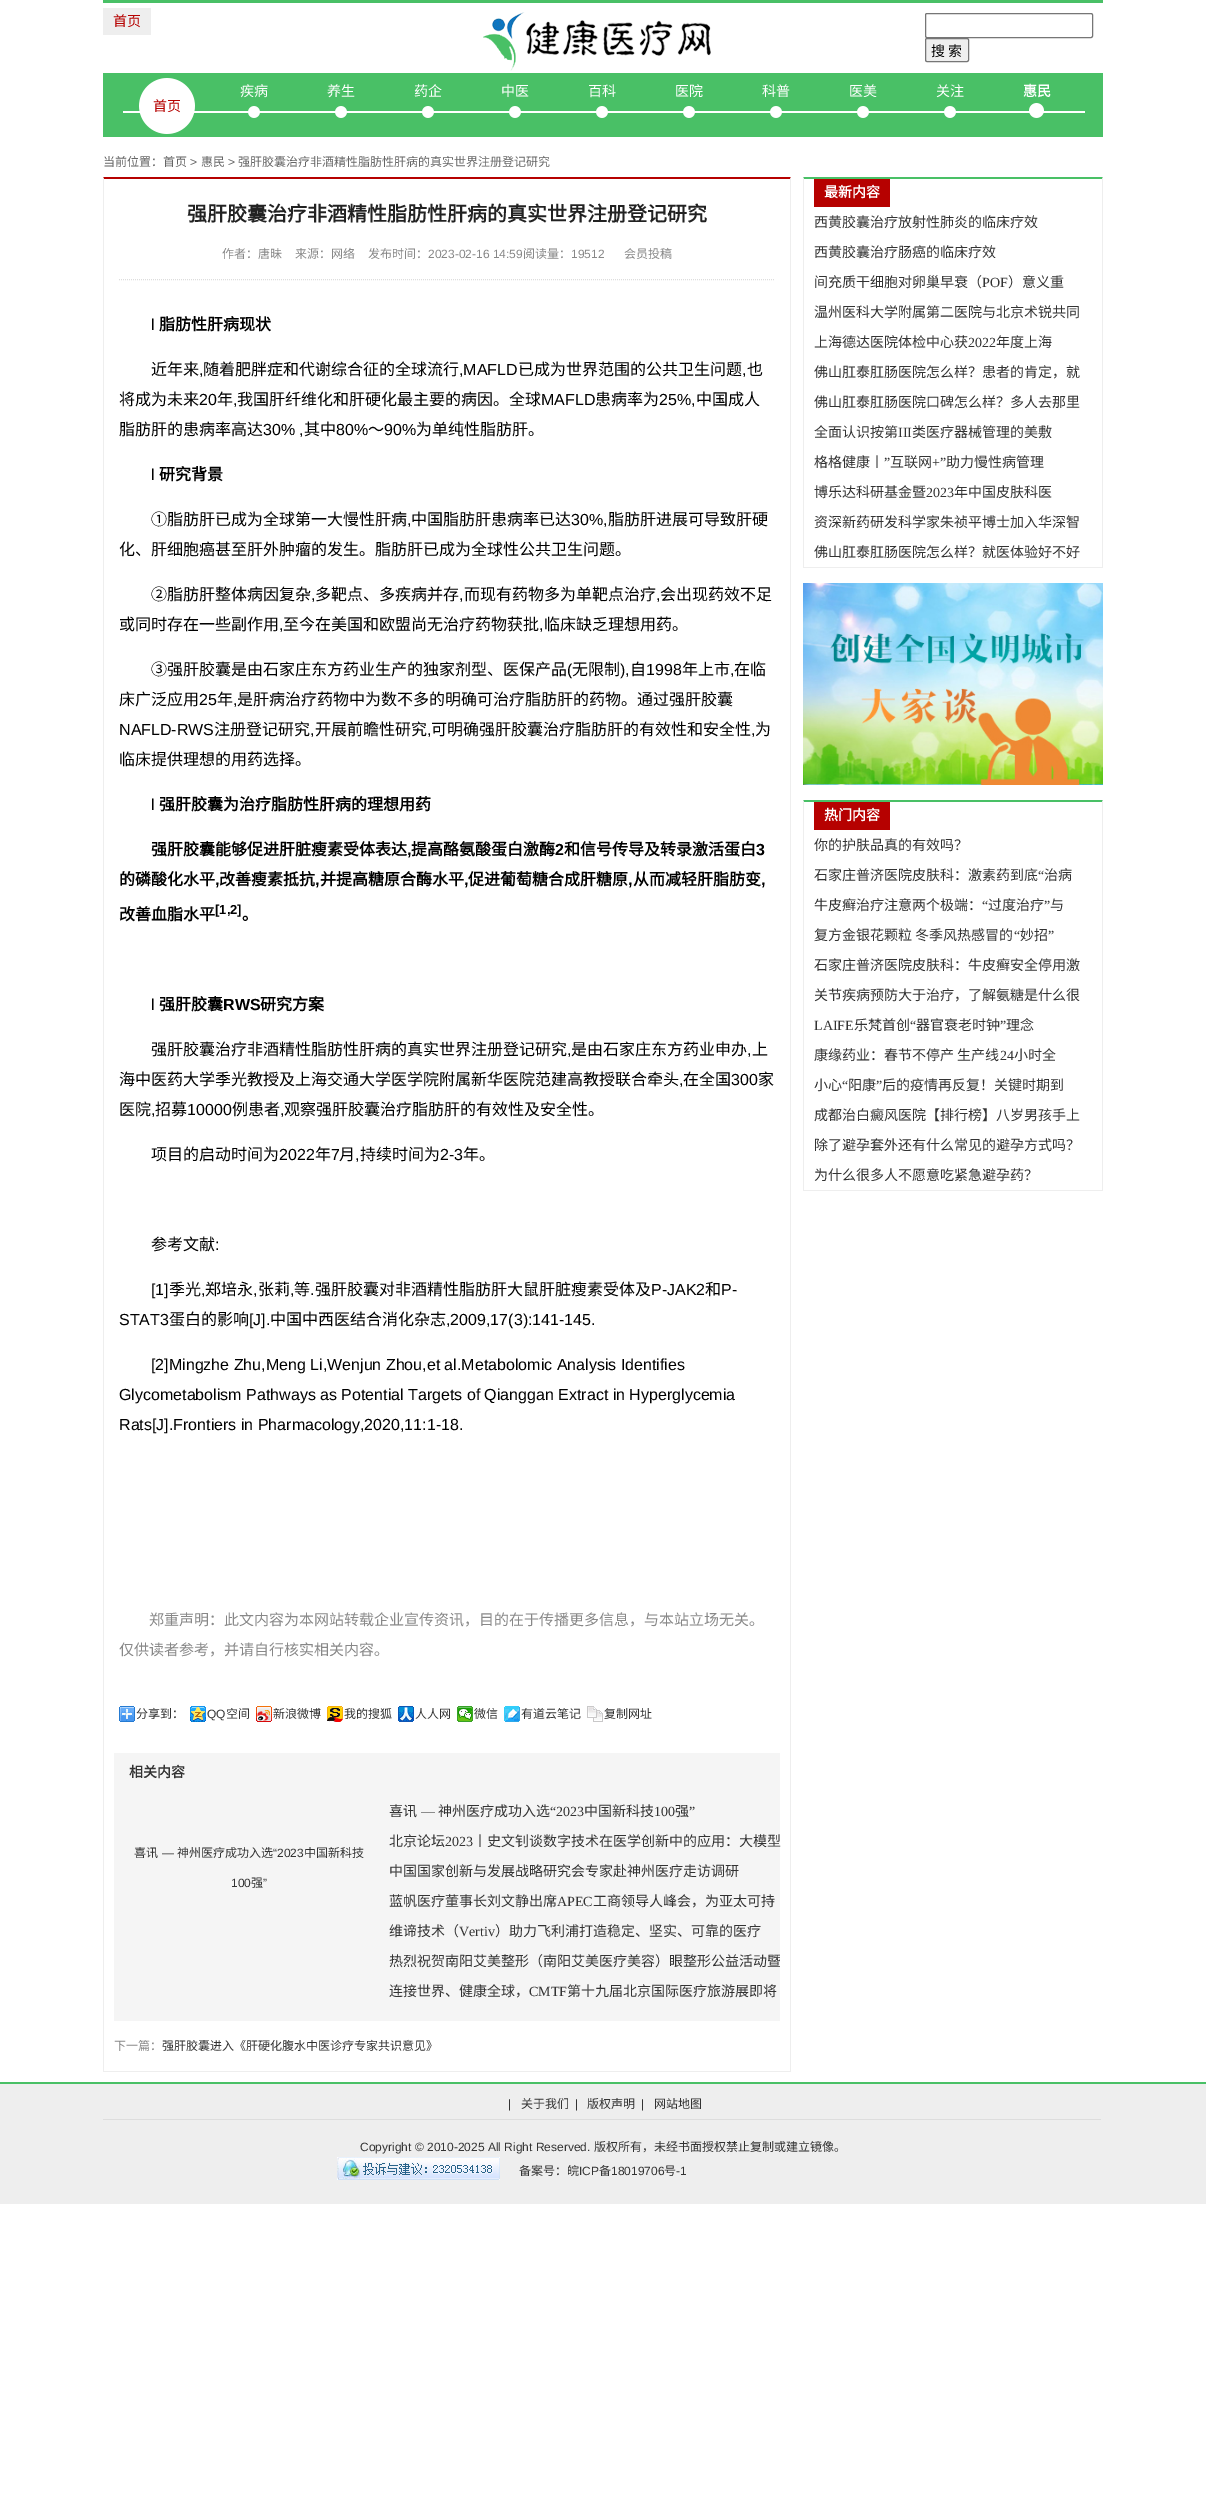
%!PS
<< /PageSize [1206 2508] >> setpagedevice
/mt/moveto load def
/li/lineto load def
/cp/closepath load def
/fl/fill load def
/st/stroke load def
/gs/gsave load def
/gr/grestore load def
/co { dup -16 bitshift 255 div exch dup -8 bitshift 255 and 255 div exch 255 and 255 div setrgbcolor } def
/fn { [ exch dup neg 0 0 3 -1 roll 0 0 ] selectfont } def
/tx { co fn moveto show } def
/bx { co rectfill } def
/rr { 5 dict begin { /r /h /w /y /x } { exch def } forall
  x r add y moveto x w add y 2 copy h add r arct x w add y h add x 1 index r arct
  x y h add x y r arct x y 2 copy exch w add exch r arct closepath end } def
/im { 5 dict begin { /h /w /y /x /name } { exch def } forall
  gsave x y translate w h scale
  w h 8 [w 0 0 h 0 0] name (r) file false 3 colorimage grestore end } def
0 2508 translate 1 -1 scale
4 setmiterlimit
0 0 1206 2508 16#FFFFFF bx
103 0 1000 3 16#49C066 bx
103 8 48 27 16#EEEEEE bx
(media/1.raw) 483 12 228 59 im
16#767676 co
925.5 13.5 167 24 1.5 rr st
16#EFEFEF co
925.5 38.5 43 23 1.5 rr gs fl gr
16#767676 co
st
103 73 1000 64 16#49C066 bx
123 111 962 2 16#FFFFFF bx
(media/2.raw) 248 106 12 12 im
(media/2.raw) 335 106 12 12 im
(media/2.raw) 422 106 12 12 im
(media/2.raw) 509 106 12 12 im
(media/2.raw) 596 106 12 12 im
(media/2.raw) 683 106 12 12 im
(media/2.raw) 770 106 12 12 im
(media/2.raw) 857 106 12 12 im
(media/2.raw) 944 106 12 12 im
(media/3.raw) 1029 103 15 15 im
(media/4.raw) 139 78 56 56 im
16#B60100 co
103 177 mt 791 177 li 790 179 li 104 179 li cp fl
16#EEEEEE co
791 177 mt 791 2072 li 790 2071 li 790 179 li cp fl
103 2071 688 1 16#EEEEEE bx
103 2072 mt 103 177 li 104 179 li 104 2071 li cp fl
16#DDDDDD co
[1 1] 0 setdash
119 279.5 mt 775 279.5 li st
(media/5.raw) 119 1706 16 16 im
(media/6.raw) 190 1706 16 16 im
(media/7.raw) 256 1706 16 16 im
(media/8.raw) 327 1706 16 16 im
(media/9.raw) 398 1706 16 16 im
(media/10.raw) 457 1706 16 16 im
(media/11.raw) 504 1706 16 16 im
(media/12.raw) 587 1706 16 16 im
114 1753 666 268 16#F5F5F5 bx
16#49C066 co
803 177 mt 1103 177 li 1102 179 li 804 179 li cp fl
16#EEEEEE co
1103 177 mt 1103 568 li 1102 567 li 1102 179 li cp fl
803 567 300 1 16#EEEEEE bx
803 568 mt 803 177 li 804 179 li 804 567 li cp fl
814 179 76 28 16#B60100 bx
(media/13.raw) 803 583 300 202 im
16#49C066 co
803 800 mt 1103 800 li 1102 802 li 804 802 li cp fl
16#EEEEEE co
1103 800 mt 1103 1191 li 1102 1190 li 1102 802 li cp fl
803 1190 300 1 16#EEEEEE bx
803 1191 mt 803 800 li 804 802 li 804 1190 li cp fl
814 802 76 28 16#B60100 bx
0 2084 1206 120 16#EEEEEE bx
0 2082 1206 2 16#49C066 bx
103 2119 998 1 16#DDDDDD bx
(media/14.raw) 337 2157 163 23 im
(首页) 113 26 /NotoSansCJKSC-Regular 14 16#B60100 tx
(搜 索) 931 56 /NotoSansCJKSC-Regular 14 16#000000 tx
(疾病) 240 96 /NotoSansCJKSC-Regular 14 16#FFFFFF tx
(养生) 327 96 /NotoSansCJKSC-Regular 14 16#FFFFFF tx
(药企) 414 96 /NotoSansCJKSC-Regular 14 16#FFFFFF tx
(中医) 501 96 /NotoSansCJKSC-Regular 14 16#FFFFFF tx
(百科) 588 96 /NotoSansCJKSC-Regular 14 16#FFFFFF tx
(医院) 675 96 /NotoSansCJKSC-Regular 14 16#FFFFFF tx
(科普) 762 96 /NotoSansCJKSC-Regular 14 16#FFFFFF tx
(医美) 849 96 /NotoSansCJKSC-Regular 14 16#FFFFFF tx
(关注) 936 96 /NotoSansCJKSC-Regular 14 16#FFFFFF tx
(惠民) 1023 96 /NotoSansCJKSC-Bold 14 16#FFFFFF tx
(首页) 153 111 /NotoSansCJKSC-Regular 14 16#B60100 tx
(当前位置：首页) 103 166 /NotoSansCJKSC-Regular 12 16#666666 tx
(>) 190 166 /LiberationSans-Regular 12 16#666666 tx
(惠民) 201 166 /NotoSansCJKSC-Regular 12 16#666666 tx
(>) 228 166 /LiberationSans-Regular 12 16#666666 tx
(强肝胶囊治疗非酒精性脂肪性肝病的真实世界注册登记研究) 238 166 /NotoSansCJKSC-Regular 12 16#666666 tx
(强肝胶囊治疗非酒精性脂肪性肝病的真实世界注册登记研究) 187 221 /NotoSansCJKSC-Bold 20 16#222222 tx
(作者：唐昧) 222 258 /NotoSansCJKSC-Regular 12 16#888888 tx
(来源：网络) 295 258 /NotoSansCJKSC-Regular 12 16#888888 tx
(发布时间：) 368 258 /NotoSansCJKSC-Regular 12 16#888888 tx
(2023-02-16 14:59) 428 258 /LiberationSans-Regular 12 16#888888 tx
(阅读量：) 523 258 /NotoSansCJKSC-Regular 12 16#888888 tx
(19512) 571 258 /LiberationSans-Regular 12 16#888888 tx
(会员投稿) 624 258 /NotoSansCJKSC-Regular 12 16#888888 tx
(l) 151 330 /LiberationSans-Regular 16 16#000000 tx
(脂肪性肝病现状) 159 330 /NotoSansCJKSC-Bold 16 16#000000 tx
(近年来) 151 375 /NotoSansCJKSC-Regular 16 16#000000 tx
(,) 199 375 /LiberationSans-Regular 16 16#000000 tx
(随着肥胖症和代谢综合征的全球流行) 203 375 /NotoSansCJKSC-Regular 16 16#000000 tx
(,MAFLD) 459 375 /LiberationSans-Regular 16 16#000000 tx
(已成为世界范围的公共卫生问题) 518 375 /NotoSansCJKSC-Regular 16 16#000000 tx
(,) 742 375 /LiberationSans-Regular 16 16#000000 tx
(也) 747 375 /NotoSansCJKSC-Regular 16 16#000000 tx
(将成为未来) 119 405 /NotoSansCJKSC-Regular 16 16#000000 tx
(20) 199 405 /LiberationSans-Regular 16 16#000000 tx
(年) 217 405 /NotoSansCJKSC-Regular 16 16#000000 tx
(我国肝纤维化和肝硬化最主要的病因。全球) 237 405 /NotoSansCJKSC-Regular 16 16#000000 tx
(MAFLD) 541 405 /LiberationSans-Regular 16 16#000000 tx
(患病率为) 595 405 /NotoSansCJKSC-Regular 16 16#000000 tx
(25%,) 659 405 /LiberationSans-Regular 16 16#000000 tx
(中国成人) 696 405 /NotoSansCJKSC-Regular 16 16#000000 tx
(,) 233 405 /LiberationSans-Regular 16 16#000000 tx
(脂肪肝的患病率高达) 119 435 /NotoSansCJKSC-Regular 16 16#000000 tx
(30% ,) 263 435 /LiberationSans-Regular 16 16#000000 tx
(其中) 304 435 /NotoSansCJKSC-Regular 16 16#000000 tx
(80%) 336 435 /LiberationSans-Regular 16 16#000000 tx
(～) 368 435 /NotoSansCJKSC-Regular 16 16#000000 tx
(90%) 384 435 /LiberationSans-Regular 16 16#000000 tx
(为单纯性脂肪肝。) 416 435 /NotoSansCJKSC-Regular 16 16#000000 tx
(l) 151 480 /LiberationSans-Regular 16 16#000000 tx
(研究背景) 159 480 /NotoSansCJKSC-Bold 16 16#000000 tx
(①脂肪肝已成为全球第一大慢性肝病) 151 525 /NotoSansCJKSC-Regular 16 16#000000 tx
(,) 407 525 /LiberationSans-Regular 16 16#000000 tx
(中国脂肪肝患病率已达) 411 525 /NotoSansCJKSC-Regular 16 16#000000 tx
(30%,) 571 525 /LiberationSans-Regular 16 16#000000 tx
(脂肪肝进展可导致肝硬) 608 525 /NotoSansCJKSC-Regular 16 16#000000 tx
(化、肝细胞癌甚至肝外肿瘤的发生。脂肪肝已成为全球性公共卫生问题。) 119 555 /NotoSansCJKSC-Regular 16 16#000000 tx
(②脂肪肝整体病因复杂) 151 600 /NotoSansCJKSC-Regular 16 16#000000 tx
(,) 311 600 /LiberationSans-Regular 16 16#000000 tx
(多靶点、多疾病并存) 315 600 /NotoSansCJKSC-Regular 16 16#000000 tx
(,) 459 600 /LiberationSans-Regular 16 16#000000 tx
(而现有药物多为单靶点治疗) 464 600 /NotoSansCJKSC-Regular 16 16#000000 tx
(,) 656 600 /LiberationSans-Regular 16 16#000000 tx
(会出现药效不足) 660 600 /NotoSansCJKSC-Regular 16 16#000000 tx
(或同时存在一些副作用) 119 630 /NotoSansCJKSC-Regular 16 16#000000 tx
(,) 279 630 /LiberationSans-Regular 16 16#000000 tx
(至今在美国和欧盟尚无治疗药物获批) 283 630 /NotoSansCJKSC-Regular 16 16#000000 tx
(,) 539 630 /LiberationSans-Regular 16 16#000000 tx
(临床缺乏理想用药。) 544 630 /NotoSansCJKSC-Regular 16 16#000000 tx
(③强肝胶囊是由石家庄东方药业生产的独家剂型、医保产品) 151 675 /NotoSansCJKSC-Regular 16 16#000000 tx
(\() 567 675 /LiberationSans-Regular 16 16#000000 tx
(无限制) 572 675 /NotoSansCJKSC-Regular 16 16#000000 tx
(\),) 620 675 /LiberationSans-Regular 16 16#000000 tx
(自) 630 675 /NotoSansCJKSC-Regular 16 16#000000 tx
(1998) 646 675 /LiberationSans-Regular 16 16#000000 tx
(年上市) 682 675 /NotoSansCJKSC-Regular 16 16#000000 tx
(,) 730 675 /LiberationSans-Regular 16 16#000000 tx
(在临) 734 675 /NotoSansCJKSC-Regular 16 16#000000 tx
(床广泛应用) 119 705 /NotoSansCJKSC-Regular 16 16#000000 tx
(25) 199 705 /LiberationSans-Regular 16 16#000000 tx
(年) 217 705 /NotoSansCJKSC-Regular 16 16#000000 tx
(,) 233 705 /LiberationSans-Regular 16 16#000000 tx
(是肝病治疗药物中为数不多的明确可治疗脂肪肝的药物。通过强肝胶囊) 237 705 /NotoSansCJKSC-Regular 16 16#000000 tx
(NAFLD-RWS) 119 735 /LiberationSans-Regular 16 16#000000 tx
(注册登记研究) 214 735 /NotoSansCJKSC-Regular 16 16#000000 tx
(,) 310 735 /LiberationSans-Regular 16 16#000000 tx
(开展前瞻性研究) 315 735 /NotoSansCJKSC-Regular 16 16#000000 tx
(,) 427 735 /LiberationSans-Regular 16 16#000000 tx
(可明确强肝胶囊治疗脂肪肝的有效性和安全性) 431 735 /NotoSansCJKSC-Regular 16 16#000000 tx
(,) 751 735 /LiberationSans-Regular 16 16#000000 tx
(为) 755 735 /NotoSansCJKSC-Regular 16 16#000000 tx
(临床提供理想的用药选择。) 119 765 /NotoSansCJKSC-Regular 16 16#000000 tx
(l) 151 810 /LiberationSans-Regular 16 16#000000 tx
(强肝胶囊为治疗脂肪性肝病的理想用药) 159 810 /NotoSansCJKSC-Bold 16 16#000000 tx
(强肝胶囊能够促进肝脏瘦素受体表达) 151 855 /NotoSansCJKSC-Bold 16 16#000000 tx
(,) 407 855 /LiberationSans-Bold 16 16#000000 tx
(提高酪氨酸蛋白激酶) 411 855 /NotoSansCJKSC-Bold 16 16#000000 tx
(2) 555 855 /LiberationSans-Bold 16 16#000000 tx
(和信号传导及转录激活蛋白) 564 855 /NotoSansCJKSC-Bold 16 16#000000 tx
(3) 756 855 /LiberationSans-Bold 16 16#000000 tx
(的磷酸化水平) 119 885 /NotoSansCJKSC-Bold 16 16#000000 tx
(,) 215 885 /LiberationSans-Bold 16 16#000000 tx
(改善瘦素抵抗) 219 885 /NotoSansCJKSC-Bold 16 16#000000 tx
(,) 315 885 /LiberationSans-Bold 16 16#000000 tx
(并提高糖原合酶水平) 320 885 /NotoSansCJKSC-Bold 16 16#000000 tx
(,) 464 885 /LiberationSans-Bold 16 16#000000 tx
(促进葡萄糖合成肝糖原) 468 885 /NotoSansCJKSC-Bold 16 16#000000 tx
(,) 628 885 /LiberationSans-Bold 16 16#000000 tx
(从而减轻肝脂肪变) 633 885 /NotoSansCJKSC-Bold 16 16#000000 tx
(,) 761 885 /LiberationSans-Bold 16 16#000000 tx
(改善血脂水平) 119 920 /NotoSansCJKSC-Bold 16 16#000000 tx
([1,2]) 215 914 /LiberationSans-Bold 13 16#000000 tx
(。) 242 920 /NotoSansCJKSC-Bold 16 16#000000 tx
(l) 151 1010 /LiberationSans-Regular 16 16#000000 tx
(强肝胶囊) 159 1010 /NotoSansCJKSC-Bold 16 16#000000 tx
(RWS) 223 1010 /LiberationSans-Bold 16 16#000000 tx
(研究方案) 260 1010 /NotoSansCJKSC-Bold 16 16#000000 tx
(强肝胶囊治疗非酒精性脂肪性肝病的真实世界注册登记研究) 151 1055 /NotoSansCJKSC-Regular 16 16#000000 tx
(,) 567 1055 /LiberationSans-Regular 16 16#000000 tx
(是由石家庄东方药业申办) 571 1055 /NotoSansCJKSC-Regular 16 16#000000 tx
(,) 747 1055 /LiberationSans-Regular 16 16#000000 tx
(上) 752 1055 /NotoSansCJKSC-Regular 16 16#000000 tx
(海中医药大学季光教授及上海交通大学医学院附属新华医院范建高教授联合牵头) 119 1085 /NotoSansCJKSC-Regular 16 16#000000 tx
(,) 679 1085 /LiberationSans-Regular 16 16#000000 tx
(在全国) 683 1085 /NotoSansCJKSC-Regular 16 16#000000 tx
(300) 731 1085 /LiberationSans-Regular 16 16#000000 tx
(家) 758 1085 /NotoSansCJKSC-Regular 16 16#000000 tx
(医院) 119 1115 /NotoSansCJKSC-Regular 16 16#000000 tx
(,) 151 1115 /LiberationSans-Regular 16 16#000000 tx
(招募) 155 1115 /NotoSansCJKSC-Regular 16 16#000000 tx
(10000) 187 1115 /LiberationSans-Regular 16 16#000000 tx
(例患者) 232 1115 /NotoSansCJKSC-Regular 16 16#000000 tx
(,) 280 1115 /LiberationSans-Regular 16 16#000000 tx
(观察强肝胶囊治疗脂肪肝的有效性及安全性。) 284 1115 /NotoSansCJKSC-Regular 16 16#000000 tx
(项目的启动时间为) 151 1160 /NotoSansCJKSC-Regular 16 16#000000 tx
(2022) 279 1160 /LiberationSans-Regular 16 16#000000 tx
(年) 315 1160 /NotoSansCJKSC-Regular 16 16#000000 tx
(7) 331 1160 /LiberationSans-Regular 16 16#000000 tx
(月) 339 1160 /NotoSansCJKSC-Regular 16 16#000000 tx
(持续时间为) 360 1160 /NotoSansCJKSC-Regular 16 16#000000 tx
(2-3) 440 1160 /LiberationSans-Regular 16 16#000000 tx
(年。) 463 1160 /NotoSansCJKSC-Regular 16 16#000000 tx
(,) 355 1160 /LiberationSans-Regular 16 16#000000 tx
(参考文献) 151 1250 /NotoSansCJKSC-Regular 16 16#000000 tx
(:) 215 1250 /LiberationSans-Regular 16 16#000000 tx
([1]) 151 1295 /LiberationSans-Regular 16 16#000000 tx
(季光) 169 1295 /NotoSansCJKSC-Regular 16 16#000000 tx
(郑培永) 205 1295 /NotoSansCJKSC-Regular 16 16#000000 tx
(张莉) 258 1295 /NotoSansCJKSC-Regular 16 16#000000 tx
(等) 294 1295 /NotoSansCJKSC-Regular 16 16#000000 tx
(强肝胶囊对非酒精性脂肪肝大鼠肝脏瘦素受体及) 315 1295 /NotoSansCJKSC-Regular 16 16#000000 tx
(P-JAK2) 651 1295 /LiberationSans-Regular 16 16#000000 tx
(和) 705 1295 /NotoSansCJKSC-Regular 16 16#000000 tx
(P-) 721 1295 /LiberationSans-Regular 16 16#000000 tx
(,) 201 1295 /LiberationSans-Regular 16 16#000000 tx
(,) 253 1295 /LiberationSans-Regular 16 16#000000 tx
(,) 290 1295 /LiberationSans-Regular 16 16#000000 tx
(.) 310 1295 /LiberationSans-Regular 16 16#000000 tx
(STAT3) 119 1325 /LiberationSans-Regular 16 16#000000 tx
(蛋白的影响) 169 1325 /NotoSansCJKSC-Regular 16 16#000000 tx
([J].) 249 1325 /LiberationSans-Regular 16 16#000000 tx
(中国中西医结合消化杂志) 270 1325 /NotoSansCJKSC-Regular 16 16#000000 tx
(,2009,17\(3\):141-145.) 446 1325 /LiberationSans-Regular 16 16#000000 tx
([2]Mingzhe Zhu,Meng Li,Wenjun Zhou,et al.Metabolomic Analysis Identifies) 151 1370 /LiberationSans-Regular 16 16#000000 tx
(Glycometabolism Pathways as Potential Targets of Qianggan Extract in Hyperglycemia) 119 1400 /LiberationSans-Regular 16 16#000000 tx
(Rats[J].Frontiers in Pharmacology,2020,11:1-18.) 119 1430 /LiberationSans-Regular 16 16#000000 tx
(郑重声明：此文内容为本网站转载企业宣传资讯，目的在于传播更多信息，与本站立场无关。) 149 1625 /NotoSansCJKSC-Regular 15 16#888888 tx
(仅供读者参考，并请自行核实相关内容。) 119 1655 /NotoSansCJKSC-Regular 15 16#888888 tx
(分享到：) 136 1718 /NotoSansCJKSC-Regular 12 16#333333 tx
(QQ) 207 1718 /LiberationSans-Regular 12 16#333333 tx
(空间) 226 1718 /NotoSansCJKSC-Regular 12 16#333333 tx
(新浪微博) 273 1718 /NotoSansCJKSC-Regular 12 16#333333 tx
(我的搜狐) 344 1718 /NotoSansCJKSC-Regular 12 16#333333 tx
(人人网) 415 1718 /NotoSansCJKSC-Regular 12 16#333333 tx
(微信) 474 1718 /NotoSansCJKSC-Regular 12 16#333333 tx
(有道云笔记) 521 1718 /NotoSansCJKSC-Regular 12 16#333333 tx
(复制网址) 604 1718 /NotoSansCJKSC-Regular 12 16#333333 tx
(相关内容) 129 1777 /NotoSansCJKSC-Bold 14 16#333333 tx
(喜讯) 134 1857 /NotoSansCJKSC-Regular 12 16#333333 tx
(—) 162 1857 /LiberationSans-Regular 12 16#333333 tx
(神州医疗成功入选) 177 1857 /NotoSansCJKSC-Regular 12 16#333333 tx
(“2023) 273 1857 /LiberationSans-Regular 12 16#333333 tx
(中国新科技) 304 1857 /NotoSansCJKSC-Regular 12 16#333333 tx
(100) 231 1887 /LiberationSans-Regular 12 16#333333 tx
(强) 251 1887 /NotoSansCJKSC-Regular 12 16#333333 tx
(”) 263 1887 /LiberationSans-Regular 12 16#333333 tx
(喜讯) 389 1816 /NotoSansCJKSC-Regular 14 16#333333 tx
(神州医疗成功入选) 438 1816 /NotoSansCJKSC-Regular 14 16#333333 tx
(“2023) 550 1816 /LiberationSerif-Regular 14 16#333333 tx
(中国新科技) 584 1816 /NotoSansCJKSC-Regular 14 16#333333 tx
(100) 654 1816 /LiberationSerif-Regular 14 16#333333 tx
(强) 675 1816 /NotoSansCJKSC-Regular 14 16#333333 tx
(”) 689 1816 /LiberationSerif-Regular 14 16#333333 tx
(—) 421 1816 /LiberationSerif-Regular 14 16#333333 tx
(北京论坛) 389 1846 /NotoSansCJKSC-Regular 14 16#333333 tx
(2023) 445 1846 /LiberationSerif-Regular 14 16#333333 tx
(丨史文钊谈数字技术在医学创新中的应用：大模型) 473 1846 /NotoSansCJKSC-Regular 14 16#333333 tx
(中国国家创新与发展战略研究会专家赴神州医疗走访调研) 389 1876 /NotoSansCJKSC-Regular 14 16#333333 tx
(蓝帆医疗董事长刘文静出席) 389 1906 /NotoSansCJKSC-Regular 14 16#333333 tx
(APEC) 557 1906 /LiberationSerif-Regular 14 16#333333 tx
(工商领导人峰会，为亚太可持) 593 1906 /NotoSansCJKSC-Regular 14 16#333333 tx
(维谛技术（) 389 1936 /NotoSansCJKSC-Regular 14 16#333333 tx
(Vertiv) 459 1936 /LiberationSerif-Regular 14 16#333333 tx
(）助力飞利浦打造稳定、坚实、可靠的医疗) 495 1936 /NotoSansCJKSC-Regular 14 16#333333 tx
gs
389 1946 391 30 rectclip
(热烈祝贺南阳艾美整形（南阳艾美医疗美容）眼整形公益活动暨) 389 1966 /NotoSansCJKSC-Regular 14 16#333333 tx
gr
(连接世界、健康全球，) 389 1996 /NotoSansCJKSC-Regular 14 16#333333 tx
(CMTF) 529 1996 /LiberationSerif-Regular 14 16#333333 tx
(第十九届北京国际医疗旅游展即将) 567 1996 /NotoSansCJKSC-Regular 14 16#333333 tx
(下一篇：) 114 2050 /NotoSansCJKSC-Regular 12 16#888888 tx
(强肝胶囊进入《肝硬化腹水中医诊疗专家共识意见》) 162 2050 /NotoSansCJKSC-Regular 12 16#333333 tx
(最新内容) 824 197 /NotoSansCJKSC-Bold 14 16#FFFFFF tx
(西黄胶囊治疗放射性肺炎的临床疗效) 814 227 /NotoSansCJKSC-Regular 14 16#333333 tx
(西黄胶囊治疗肠癌的临床疗效) 814 257 /NotoSansCJKSC-Regular 14 16#333333 tx
(间充质干细胞对卵巢早衰（) 814 287 /NotoSansCJKSC-Regular 14 16#333333 tx
(POF) 982 287 /LiberationSerif-Regular 14 16#333333 tx
(）意义重) 1008 287 /NotoSansCJKSC-Regular 14 16#333333 tx
(温州医科大学附属第二医院与北京术锐共同) 814 317 /NotoSansCJKSC-Regular 14 16#333333 tx
(上海德达医院体检中心获) 814 347 /NotoSansCJKSC-Regular 14 16#333333 tx
(2022) 968 347 /LiberationSerif-Regular 14 16#333333 tx
(年度上海) 996 347 /NotoSansCJKSC-Regular 14 16#333333 tx
(佛山肛泰肛肠医院怎么样？患者的肯定，就) 814 377 /NotoSansCJKSC-Regular 14 16#333333 tx
(佛山肛泰肛肠医院口碑怎么样？多人去那里) 814 407 /NotoSansCJKSC-Regular 14 16#333333 tx
(全面认识按第) 814 437 /NotoSansCJKSC-Regular 14 16#333333 tx
(III) 898 437 /LiberationSerif-Regular 14 16#333333 tx
(类医疗器械管理的美敷) 912 437 /NotoSansCJKSC-Regular 14 16#333333 tx
(格格健康丨) 814 467 /NotoSansCJKSC-Regular 14 16#333333 tx
(”) 884 467 /LiberationSerif-Regular 14 16#333333 tx
(互联网) 890 467 /NotoSansCJKSC-Regular 14 16#333333 tx
(+”) 932 467 /LiberationSerif-Regular 14 16#333333 tx
(助力慢性病管理) 946 467 /NotoSansCJKSC-Regular 14 16#333333 tx
(博乐达科研基金暨) 814 497 /NotoSansCJKSC-Regular 14 16#333333 tx
(2023) 926 497 /LiberationSerif-Regular 14 16#333333 tx
(年中国皮肤科医) 954 497 /NotoSansCJKSC-Regular 14 16#333333 tx
(资深新药研发科学家朱祯平博士加入华深智) 814 527 /NotoSansCJKSC-Regular 14 16#333333 tx
(佛山肛泰肛肠医院怎么样？就医体验好不好) 814 557 /NotoSansCJKSC-Regular 14 16#333333 tx
(热门内容) 824 820 /NotoSansCJKSC-Bold 14 16#FFFFFF tx
(你的护肤品真的有效吗？) 814 850 /NotoSansCJKSC-Regular 14 16#333333 tx
(石家庄普济医院皮肤科：激素药到底) 814 880 /NotoSansCJKSC-Regular 14 16#333333 tx
(“) 1038 880 /LiberationSerif-Regular 14 16#333333 tx
(治病) 1044 880 /NotoSansCJKSC-Regular 14 16#333333 tx
(牛皮癣治疗注意两个极端：) 814 910 /NotoSansCJKSC-Regular 14 16#333333 tx
(“) 982 910 /LiberationSerif-Regular 14 16#333333 tx
(过度治疗) 988 910 /NotoSansCJKSC-Regular 14 16#333333 tx
(”) 1044 910 /LiberationSerif-Regular 14 16#333333 tx
(与) 1050 910 /NotoSansCJKSC-Regular 14 16#333333 tx
(复方金银花颗粒 冬季风热感冒的) 814 940 /NotoSansCJKSC-Regular 14 16#333333 tx
(“) 1014 940 /LiberationSerif-Regular 14 16#333333 tx
(妙招) 1020 940 /NotoSansCJKSC-Regular 14 16#333333 tx
(”) 1048 940 /LiberationSerif-Regular 14 16#333333 tx
(石家庄普济医院皮肤科：牛皮癣安全停用激) 814 970 /NotoSansCJKSC-Regular 14 16#333333 tx
(关节疾病预防大于治疗，了解氨糖是什么很) 814 1000 /NotoSansCJKSC-Regular 14 16#333333 tx
(LAIFE) 814 1030 /LiberationSerif-Regular 14 16#333333 tx
(乐梵首创) 854 1030 /NotoSansCJKSC-Regular 14 16#333333 tx
(“) 910 1030 /LiberationSerif-Regular 14 16#333333 tx
(器官衰老时钟) 916 1030 /NotoSansCJKSC-Regular 14 16#333333 tx
(”) 1000 1030 /LiberationSerif-Regular 14 16#333333 tx
(理念) 1006 1030 /NotoSansCJKSC-Regular 14 16#333333 tx
(康缘药业：春节不停产 生产线) 814 1060 /NotoSansCJKSC-Regular 14 16#333333 tx
(24) 1000 1060 /LiberationSerif-Regular 14 16#333333 tx
(小时全) 1014 1060 /NotoSansCJKSC-Regular 14 16#333333 tx
(小心) 814 1090 /NotoSansCJKSC-Regular 14 16#333333 tx
(“) 842 1090 /LiberationSerif-Regular 14 16#333333 tx
(阳康) 848 1090 /NotoSansCJKSC-Regular 14 16#333333 tx
(”) 876 1090 /LiberationSerif-Regular 14 16#333333 tx
(后的疫情再反复！关键时期到) 882 1090 /NotoSansCJKSC-Regular 14 16#333333 tx
(成都治白癜风医院【排行榜】八岁男孩手上) 814 1120 /NotoSansCJKSC-Regular 14 16#333333 tx
(除了避孕套外还有什么常见的避孕方式吗？) 814 1150 /NotoSansCJKSC-Regular 14 16#333333 tx
(为什么很多人不愿意吃紧急避孕药？) 814 1180 /NotoSansCJKSC-Regular 14 16#333333 tx
(|) 508 2108 /LiberationSans-Regular 12 16#333333 tx
(关于我们) 521 2108 /NotoSansCJKSC-Regular 12 16#333333 tx
(|) 575 2108 /LiberationSans-Regular 12 16#333333 tx
(版权声明) 587 2108 /NotoSansCJKSC-Regular 12 16#333333 tx
(|) 641 2108 /LiberationSans-Regular 12 16#333333 tx
(网站地图) 654 2108 /NotoSansCJKSC-Regular 12 16#333333 tx
(Copyright © 2010-2025 All Right Reserved.) 360 2151 /LiberationSans-Regular 12 16#333333 tx
(版权所有，未经书面授权禁止复制或建立镜像。) 594 2151 /NotoSansCJKSC-Regular 12 16#333333 tx
(备案号：皖) 519 2175 /NotoSansCJKSC-Regular 12 16#333333 tx
(ICP) 579 2175 /LiberationSans-Regular 12 16#333333 tx
(备) 599 2175 /NotoSansCJKSC-Regular 12 16#333333 tx
(18019706) 611 2175 /LiberationSans-Regular 12 16#333333 tx
(号) 664 2175 /NotoSansCJKSC-Regular 12 16#333333 tx
(-1) 676 2175 /LiberationSans-Regular 12 16#333333 tx
showpage
